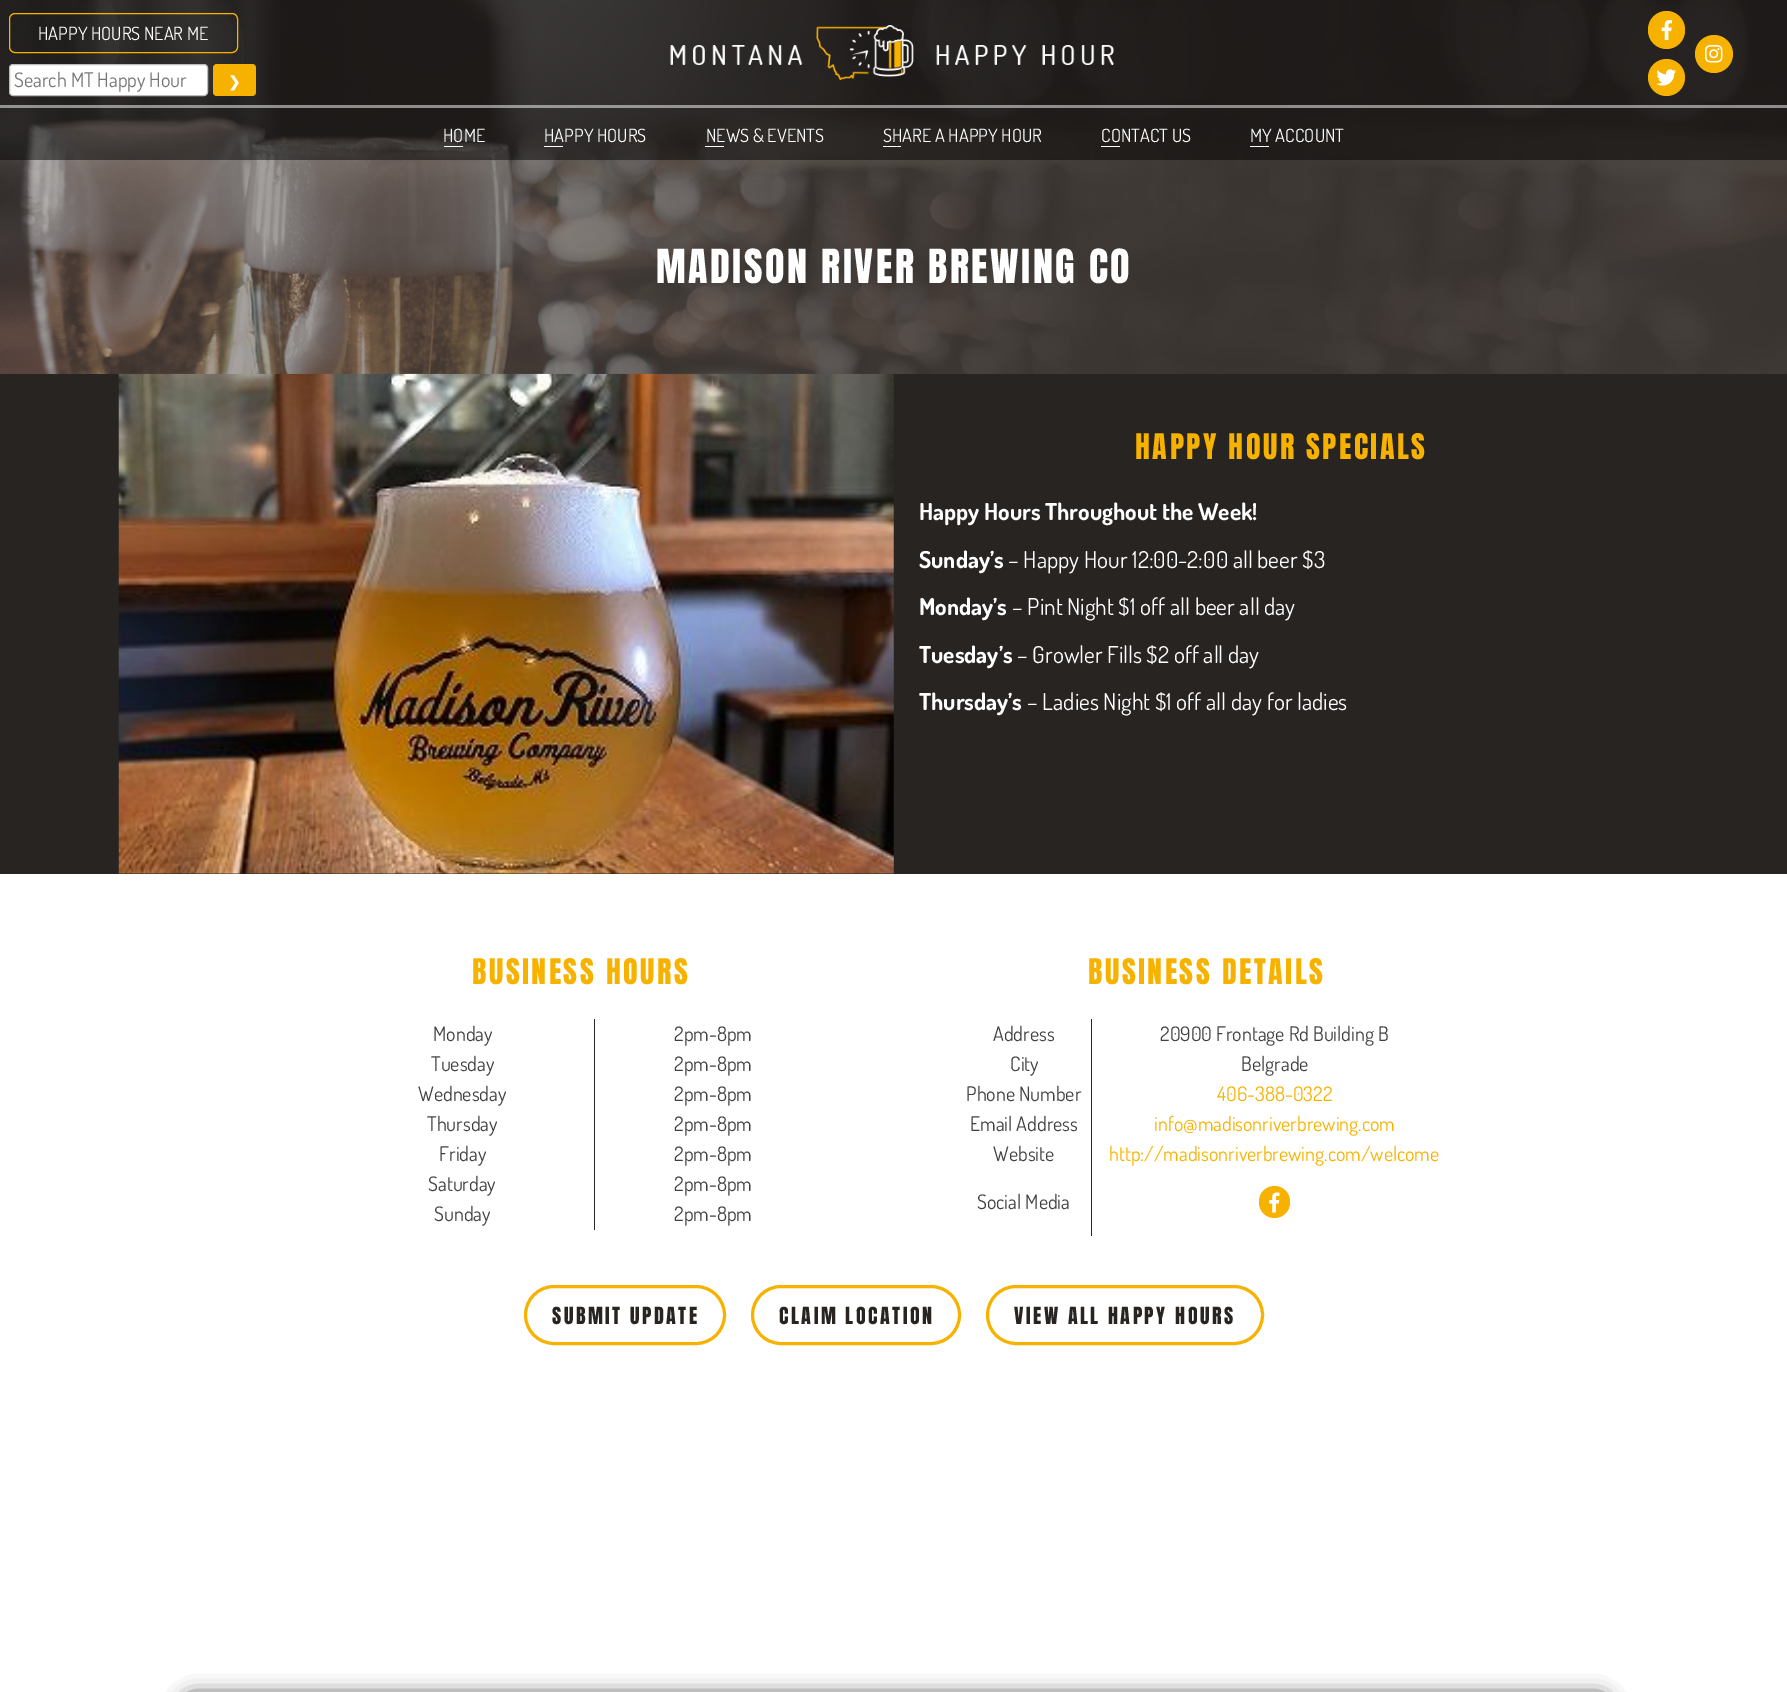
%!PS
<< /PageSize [1787 1692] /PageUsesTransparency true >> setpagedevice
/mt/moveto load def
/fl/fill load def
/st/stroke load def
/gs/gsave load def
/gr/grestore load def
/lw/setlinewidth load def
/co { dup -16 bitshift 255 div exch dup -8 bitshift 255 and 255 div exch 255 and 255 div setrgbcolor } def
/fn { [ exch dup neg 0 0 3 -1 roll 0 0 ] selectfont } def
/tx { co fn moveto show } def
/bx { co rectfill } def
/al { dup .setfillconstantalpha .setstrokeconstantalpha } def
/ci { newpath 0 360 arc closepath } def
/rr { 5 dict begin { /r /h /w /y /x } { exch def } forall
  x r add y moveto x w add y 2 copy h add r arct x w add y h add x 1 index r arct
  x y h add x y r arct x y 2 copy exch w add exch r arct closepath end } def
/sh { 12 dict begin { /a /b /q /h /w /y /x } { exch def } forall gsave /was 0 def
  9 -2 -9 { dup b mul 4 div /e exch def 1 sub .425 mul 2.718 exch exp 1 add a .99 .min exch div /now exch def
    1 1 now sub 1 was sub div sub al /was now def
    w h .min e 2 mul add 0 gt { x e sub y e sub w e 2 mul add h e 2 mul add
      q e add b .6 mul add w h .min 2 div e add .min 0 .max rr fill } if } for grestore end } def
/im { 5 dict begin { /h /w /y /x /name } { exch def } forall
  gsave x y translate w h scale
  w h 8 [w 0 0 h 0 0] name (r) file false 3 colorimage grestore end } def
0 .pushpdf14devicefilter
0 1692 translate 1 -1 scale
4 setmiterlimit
0 0 1787 1692 16#FFFFFF bx
(media/1.raw) 0 0 1787 374 im
0.5 al
0 0 1787 160 16#000000 bx
1 al
16#F7B200 co
9.5 13.5 228 39 5.5 rr st
(media/2.raw) 670 25 444 55 im
1648 11 37 38 18.5 rr fl
(media/3.raw) 1661 20 12 20 im
1714 54 19 ci fl
(media/4.raw) 1705 45 18 18 im
1666.5 77.5 18.5 ci fl
(media/5.raw) 1656 69 21 17 im
16#FFFFFF co
9.5 64.5 198 31 3.5 rr gs fl gr
16#BBBBBB co
st
16#F7B200 co
213 64 43 32 4 rr fl
0.5 al
0 105 1787 3 16#FFFFFF bx
1 al
444 146 19 1 16#FFFFFF bx
544 146 19 1 16#FFFFFF bx
705 146 19 1 16#FFFFFF bx
883 146 18 1 16#FFFFFF bx
1101 146 19 1 16#FFFFFF bx
1250 146 19 1 16#FFFFFF bx
0 374 1787 500 16#282422 bx
(media/6.raw) 118 373 776 501 im
594 1019 1 211 16#282422 bx
1091 1019 1 217 16#282422 bx
16#F7B200 co
1259 1186 31 32 15.5 rr fl
(media/7.raw) 1269 1192 11 21 im
3 lw
525.5 1286.5 199 57 28.5 rr st
752.5 1286.5 207 57 28.5 rr st
987.5 1286.5 275 57 28.5 rr st
16#222222 co
181 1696 1430 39 13 10 1 sh
(HAPPY HOURS NEAR ME) 38 40 /Dosis-Regular 18.25 16#FFFFFF tx
(Search MT Happy Hour) 14 87 /Dosis-Regular 20 16#757575 tx
(❯) 228 87 /DejaVuSans-Bold 15 16#FFFFFF tx
(HOME) 443 142 /Dosis-Regular 18.25 16#FFFFFF tx
(HAPPY HOURS) 544 142 /Dosis-Regular 18.25 16#FFFFFF tx
(NEWS & EVENTS) 706 142 /Dosis-Regular 18.25 16#FFFFFF tx
(SHARE A HAPPY HOUR) 883 142 /Dosis-Regular 18.25 16#FFFFFF tx
(CONTACT US) 1101 142 /Dosis-Regular 18.25 16#FFFFFF tx
(MY ACCOUNT) 1250 142 /Dosis-Regular 18.25 16#FFFFFF tx
/Anton-Regular 40 fn
656 283 mt 2.5 0 (MADISON RIVER BREWING CO) ashow
/Anton-Regular 30 fn
16#F7B200 co
1135 459 mt 2.5 0 (HAPPY HOUR SPECIALS) ashow
(Happy Hours Throughout the Week!) 919 520 /Dosis-Bold 23.3 16#FFFFFF tx
(Sunday’s) 919 568 /Dosis-Bold 23.3 16#FFFFFF tx
(– Happy Hour 12:00-2:00 all beer $3) 1008 568 /Dosis-Regular 23.3 16#FFFFFF tx
(Monday’s) 919 615 /Dosis-Bold 23.3 16#FFFFFF tx
(– Pint Night $1 off all beer all day) 1012 615 /Dosis-Regular 23.3 16#FFFFFF tx
(Tuesday’s) 919 663 /Dosis-Bold 23.3 16#FFFFFF tx
(– Growler Fills $2 off all day) 1017 663 /Dosis-Regular 23.3 16#FFFFFF tx
(Thursday’s) 919 710 /Dosis-Bold 23.3 16#FFFFFF tx
(– Ladies Night $1 off all day for ladies) 1027 710 /Dosis-Regular 23.3 16#FFFFFF tx
/Anton-Regular 30 fn
16#F7B200 co
472 984 mt 2.5 0 (BUSINESS HOURS) ashow
(Monday) 433 1041 /Dosis-Regular 20 16#404040 tx
(2pm-8pm) 674 1041 /Dosis-Regular 20 16#404040 tx
(Tuesday) 431 1071 /Dosis-Regular 20 16#404040 tx
(2pm-8pm) 674 1071 /Dosis-Regular 20 16#404040 tx
(Wednesday) 418 1101 /Dosis-Regular 20 16#404040 tx
(2pm-8pm) 674 1101 /Dosis-Regular 20 16#404040 tx
(Thursday) 427 1131 /Dosis-Regular 20 16#404040 tx
(2pm-8pm) 674 1131 /Dosis-Regular 20 16#404040 tx
(Friday) 439 1161 /Dosis-Regular 20 16#404040 tx
(2pm-8pm) 674 1161 /Dosis-Regular 20 16#404040 tx
(Saturday) 428 1191 /Dosis-Regular 20 16#404040 tx
(2pm-8pm) 674 1191 /Dosis-Regular 20 16#404040 tx
(Sunday) 434 1221 /Dosis-Regular 20 16#404040 tx
(2pm-8pm) 674 1221 /Dosis-Regular 20 16#404040 tx
/Anton-Regular 30 fn
16#F7B200 co
1088 984 mt 2.5 0 (BUSINESS DETAILS) ashow
(Address) 993 1041 /Dosis-Regular 20 16#404040 tx
(20900 Frontage Rd Building B) 1160 1041 /Dosis-Regular 20 16#404040 tx
(City) 1010 1071 /Dosis-Regular 20 16#404040 tx
(Belgrade) 1241 1071 /Dosis-Regular 20 16#404040 tx
(Phone Number) 966 1101 /Dosis-Regular 20 16#404040 tx
(406-388-0322) 1217 1101 /Dosis-Regular 20 16#F7B200 tx
(Email Address) 970 1131 /Dosis-Regular 20 16#404040 tx
(info@madisonriverbrewing.com) 1154 1131 /Dosis-Regular 20 16#F7B200 tx
(Website) 993 1161 /Dosis-Regular 20 16#404040 tx
(http://madisonriverbrewing.com/welcome) 1109 1161 /Dosis-Regular 20 16#F7B200 tx
(Social Media) 977 1209 /Dosis-Regular 20 16#404040 tx
/Anton-Regular 20 fn
16#282422 co
552 1324 mt 2.5 0 (SUBMIT UPDATE) ashow
779 1324 mt 2.5 0 (CLAIM LOCATION) ashow
1014 1324 mt 2.5 0 (VIEW ALL HAPPY HOURS) ashow
.poppdf14devicefilter showpage
